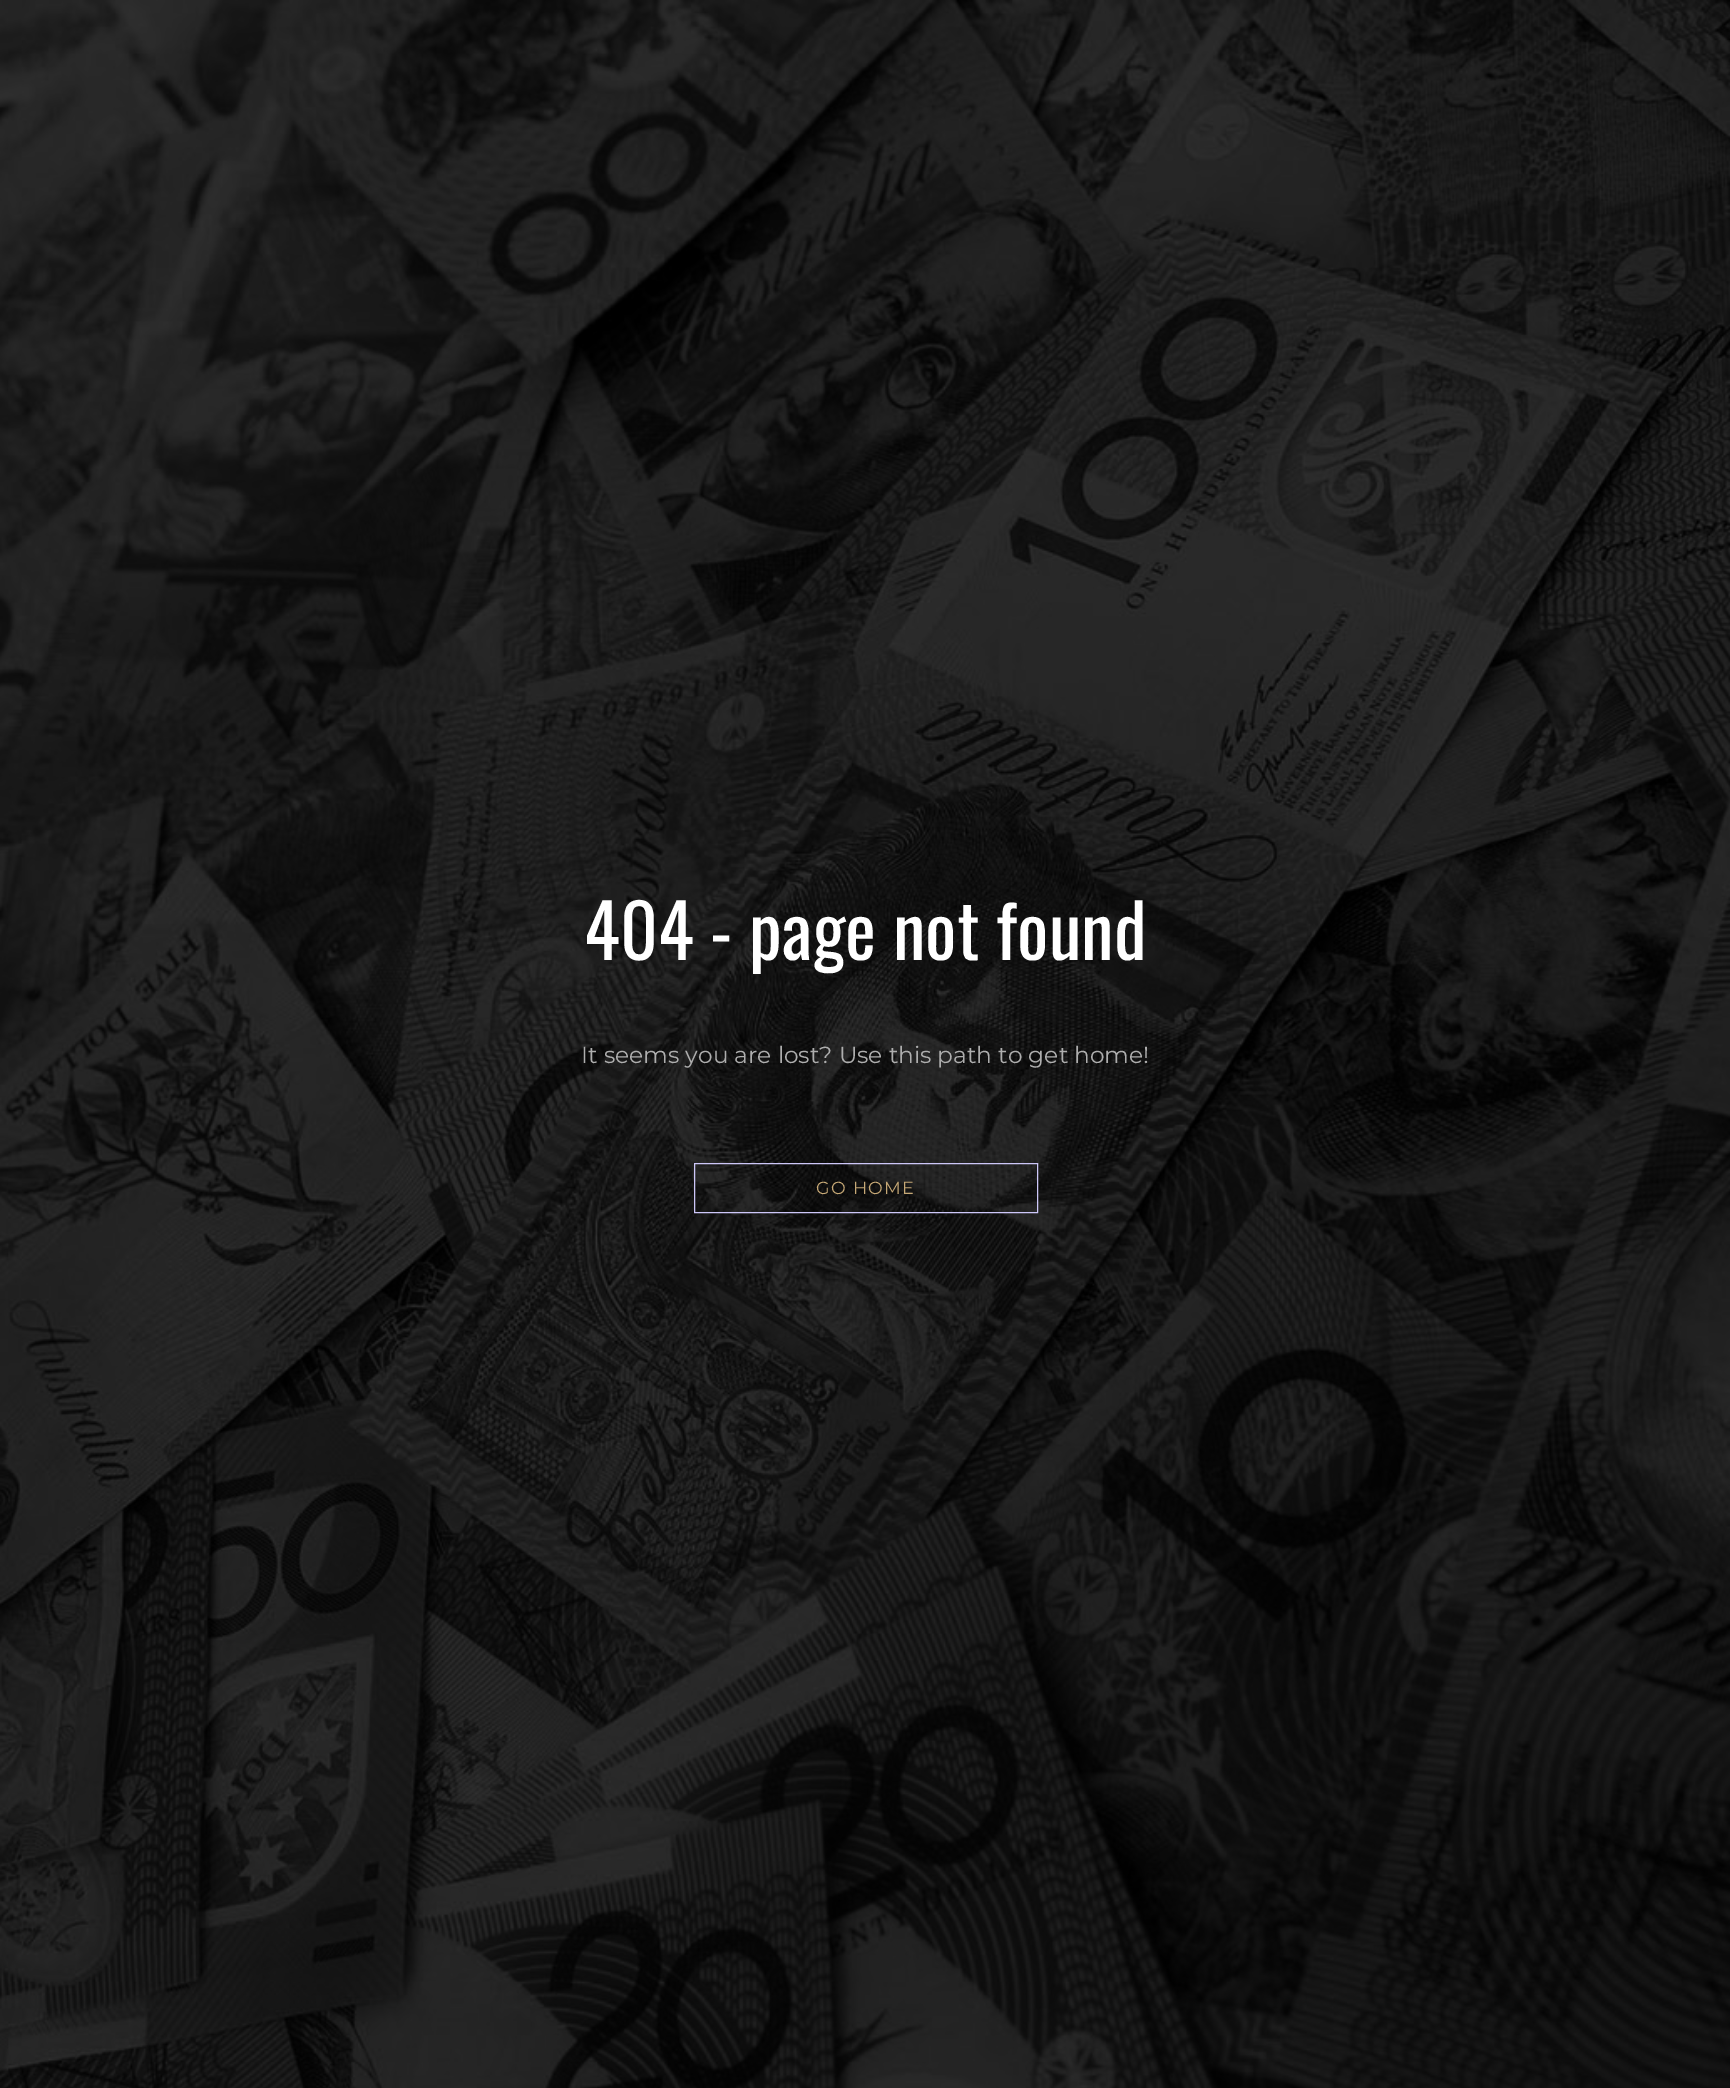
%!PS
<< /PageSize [1730 2088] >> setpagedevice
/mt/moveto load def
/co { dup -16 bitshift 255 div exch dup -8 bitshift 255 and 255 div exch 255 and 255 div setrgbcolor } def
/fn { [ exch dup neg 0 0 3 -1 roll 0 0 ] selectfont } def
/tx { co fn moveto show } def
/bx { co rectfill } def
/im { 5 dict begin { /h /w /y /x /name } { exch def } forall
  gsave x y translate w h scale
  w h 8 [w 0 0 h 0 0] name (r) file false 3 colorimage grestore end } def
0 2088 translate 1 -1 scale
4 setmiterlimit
0 0 1730 2088 16#000000 bx
(media/1.raw) 0 0 1730 2088 im
16#CDC7F9 co
694.5 1163.5 343 49 rectstroke
(404 - page not found) 584 960 /Oswald-Regular 73.75 16#FFFFFF tx
(It seems you are lost? Use this path to get home!) 581 1063 /Montserrat-Regular 23.3 16#AEAEAE tx
/Montserrat-Regular 17.5 fn
16#C7A976 co
816 1194 mt 1.25 0 (GO HOME) ashow
showpage
